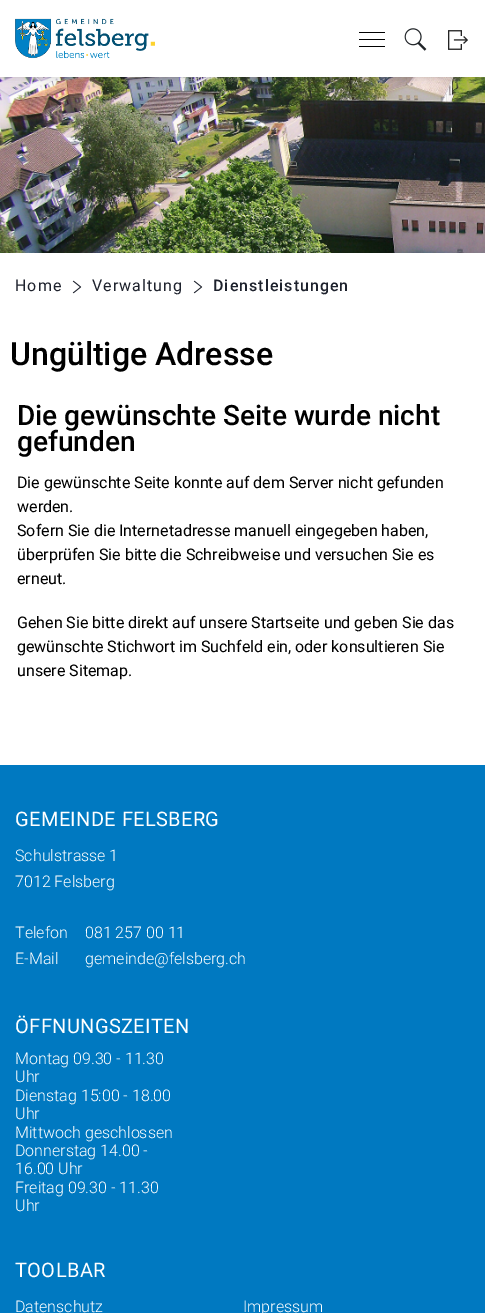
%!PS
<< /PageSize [485 1313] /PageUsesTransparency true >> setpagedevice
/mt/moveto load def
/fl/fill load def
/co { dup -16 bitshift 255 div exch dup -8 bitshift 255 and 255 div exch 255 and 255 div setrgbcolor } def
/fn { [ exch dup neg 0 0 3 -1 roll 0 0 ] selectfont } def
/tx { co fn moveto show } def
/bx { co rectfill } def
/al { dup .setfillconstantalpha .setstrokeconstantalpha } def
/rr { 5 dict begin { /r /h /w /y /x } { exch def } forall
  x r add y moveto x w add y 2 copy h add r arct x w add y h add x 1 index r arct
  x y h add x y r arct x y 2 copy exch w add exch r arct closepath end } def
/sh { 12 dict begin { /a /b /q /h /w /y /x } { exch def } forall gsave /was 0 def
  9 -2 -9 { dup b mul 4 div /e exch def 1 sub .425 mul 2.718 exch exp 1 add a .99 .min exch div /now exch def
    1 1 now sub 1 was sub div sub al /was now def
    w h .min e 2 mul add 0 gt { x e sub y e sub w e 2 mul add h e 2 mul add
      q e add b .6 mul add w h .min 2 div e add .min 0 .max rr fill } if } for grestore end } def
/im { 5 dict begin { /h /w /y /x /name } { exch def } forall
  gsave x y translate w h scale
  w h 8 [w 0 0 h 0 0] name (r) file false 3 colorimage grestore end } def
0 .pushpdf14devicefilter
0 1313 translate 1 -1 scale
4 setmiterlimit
0 0 485 1313 16#FFFFFF bx
(media/4.raw) 0 77 485 176 im
16#000000 co
0 0 485 77 0 5 .2 sh
0 0 485 77 16#FFFFFF bx
(media/1.raw) 15 18 140 41 im
(media/2.raw) 404 28 23 23 im
(media/3.raw) 448 30 20 20 im
16#000000 co
359 32 26 1 .5 rr fl
359 39 26 1 .5 rr fl
359 46 26 1 .5 rr fl
(media/5.raw) 72 280 10 14 im
(media/5.raw) 193 280 10 14 im
0 765 485 548 16#0079C1 bx
/Roboto-Regular 16 fn
16#1E222D co
15 291 mt 1 0 (Home) ashow
92 291 mt 1 0 (Verwaltung) ashow
/Roboto-Medium 16 fn
213 291 mt 1 0 (Dienstleistungen) ashow
(Ungültige Adresse) 10 365 /Roboto-Medium 32 16#000000 tx
(Die gewünschte Seite wurde nicht) 17 425 /Roboto-Medium 28 16#000000 tx
(gefunden) 17 451 /Roboto-Medium 28 16#000000 tx
(Die gewünschte Seite konnte auf dem Server nicht gefunden) 17 488 /Roboto-Regular 16 16#000000 tx
(werden.) 17 512 /Roboto-Regular 16 16#000000 tx
(Sofern Sie die Internetadresse manuell eingegeben haben,) 17 536 /Roboto-Regular 16 16#000000 tx
(überprüfen Sie bitte die Schreibweise und versuchen Sie es) 17 560 /Roboto-Regular 16 16#000000 tx
(erneut.) 17 584 /Roboto-Regular 16 16#000000 tx
(Gehen Sie bitte direkt auf unsere Startseite und geben Sie das) 17 628 /Roboto-Regular 16 16#000000 tx
(gewünschte Stichwort im Suchfeld ein, oder konsultieren Sie) 17 652 /Roboto-Regular 16 16#000000 tx
(unsere Sitemap.) 17 676 /Roboto-Regular 16 16#000000 tx
/Roboto-Regular 20 fn
16#FFFFFF co
15 826 mt .4 0 (GEMEINDE FELSBERG) ashow
(Schulstrasse 1) 15 861 /Roboto-Light 16 16#FFFFFF tx
(7012 Felsberg) 15 887 /Roboto-Light 16 16#FFFFFF tx
(Telefon) 15 938 /Roboto-Light 16 16#FFFFFF tx
(081 257 00 11) 85 938 /Roboto-Light 16 16#FFFFFF tx
(E-Mail) 15 964 /Roboto-Light 16 16#FFFFFF tx
(gemeinde@felsberg.ch) 85 964 /Roboto-Light 16 16#FFFFFF tx
/Roboto-Regular 20 fn
15 1033 mt .4 0 (ÖFFNUNGSZEITEN) ashow
(Montag 09.30 - 11.30) 15 1064 /Roboto-Light 16 16#FFFFFF tx
(Uhr) 15 1082 /Roboto-Light 16 16#FFFFFF tx
(Dienstag 15:00 - 18.00) 15 1101 /Roboto-Light 16 16#FFFFFF tx
(Uhr) 15 1119 /Roboto-Light 16 16#FFFFFF tx
(Mittwoch geschlossen) 15 1138 /Roboto-Light 16 16#FFFFFF tx
(Donnerstag 14.00 -) 15 1156 /Roboto-Light 16 16#FFFFFF tx
(16.00 Uhr) 15 1174 /Roboto-Light 16 16#FFFFFF tx
(Freitag 09.30 - 11.30) 15 1193 /Roboto-Light 16 16#FFFFFF tx
(Uhr) 15 1211 /Roboto-Light 16 16#FFFFFF tx
/Roboto-Regular 20 fn
15 1277 mt .4 0 (TOOLBAR) ashow
(Datenschutz) 15 1312 /Roboto-Light 16 16#FFFFFF tx
(Impressum) 243 1312 /Roboto-Light 16 16#FFFFFF tx
.poppdf14devicefilter showpage
